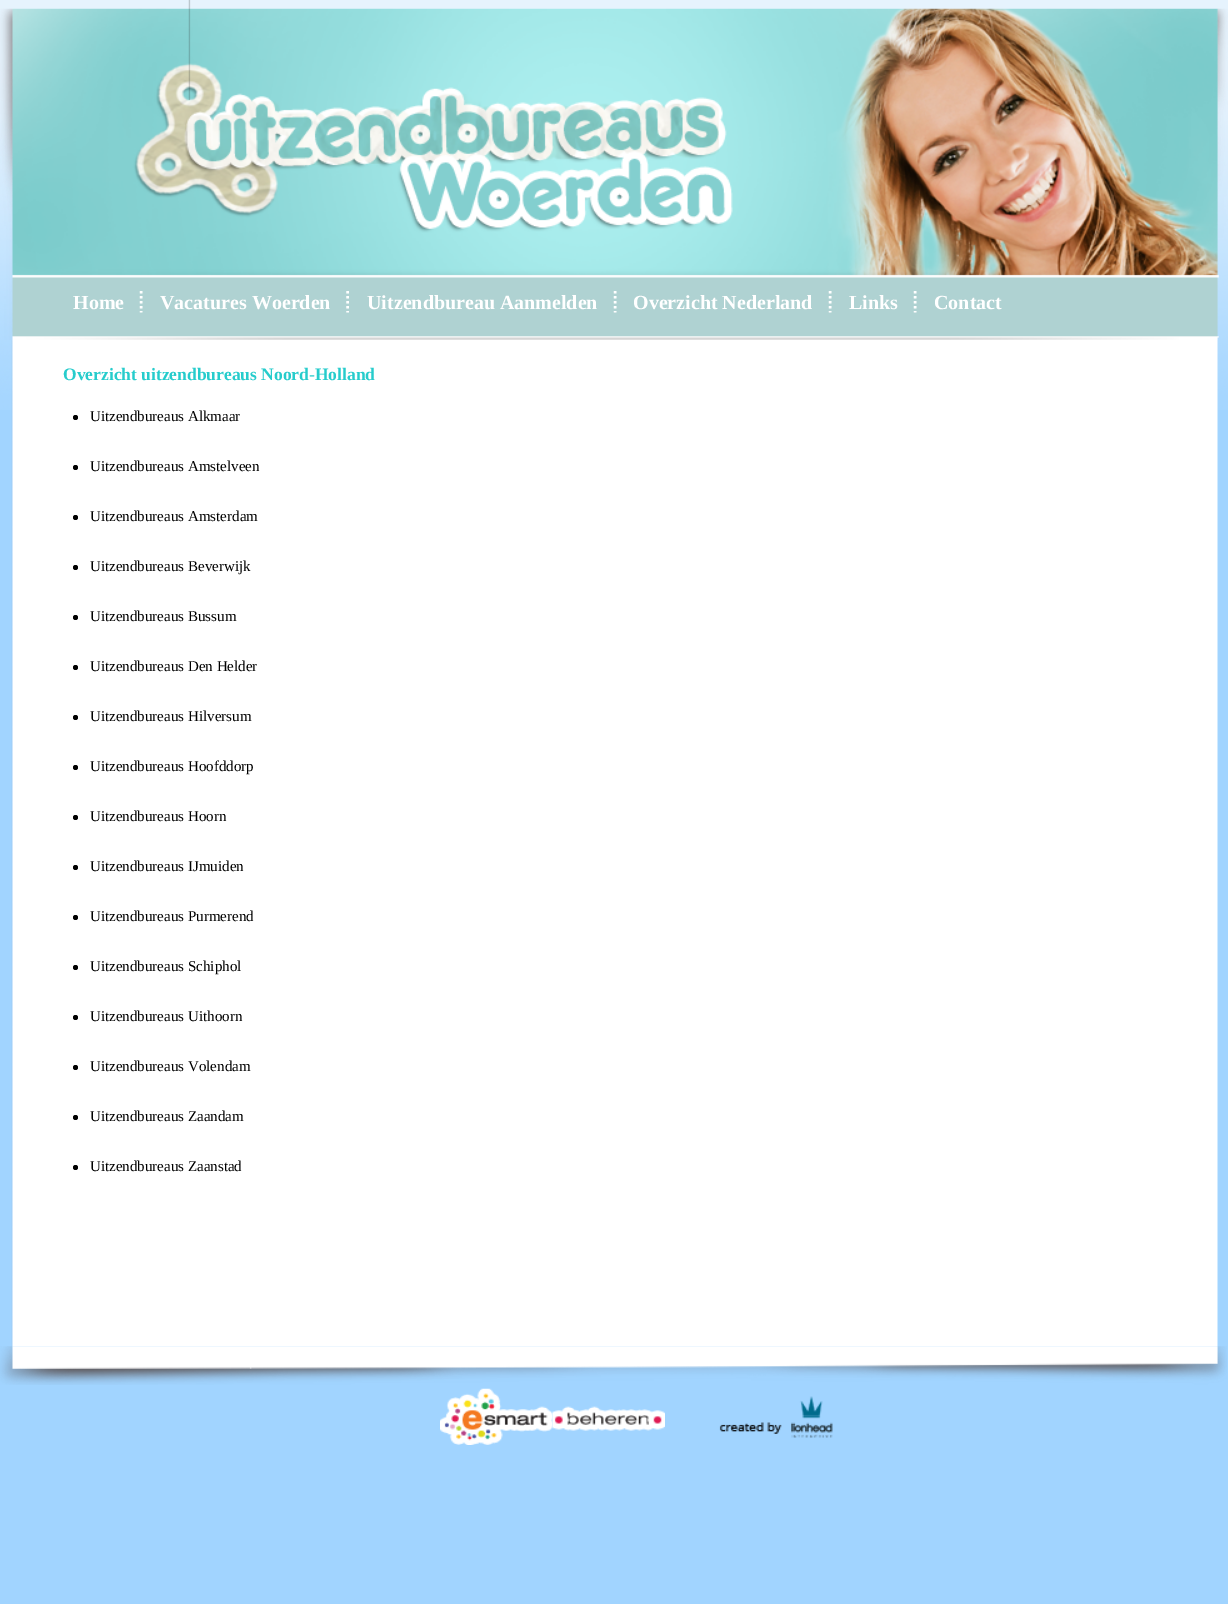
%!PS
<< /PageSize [1228 1604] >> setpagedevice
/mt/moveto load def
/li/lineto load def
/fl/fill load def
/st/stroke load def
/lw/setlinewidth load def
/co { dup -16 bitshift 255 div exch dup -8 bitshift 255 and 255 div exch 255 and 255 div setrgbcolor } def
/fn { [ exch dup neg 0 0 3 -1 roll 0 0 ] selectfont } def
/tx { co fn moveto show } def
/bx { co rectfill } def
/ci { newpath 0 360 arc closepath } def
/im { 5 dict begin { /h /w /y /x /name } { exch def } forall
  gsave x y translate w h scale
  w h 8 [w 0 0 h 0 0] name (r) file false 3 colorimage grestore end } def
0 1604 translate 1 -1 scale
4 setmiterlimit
0 0 1228 1604 16#A1D4FF bx
(media/1.raw) 0 0 1228 410 im
(media/2.raw) 0 0 1228 340 im
16#FFFFFF co
2.5 lw
[2.5 2.5] 0 setdash
141 291 mt 141 312.5 li st
347.5 291 mt 347.5 312.5 li st
615 291 mt 615 312.5 li st
830 291 mt 830 312.5 li st
915 291 mt 915 312.5 li st
(media/3.raw) 11 340 1207 1007 im
16#000000 co
75.5 417.5 2.5 ci fl
75.5 467.5 2.5 ci fl
75.5 517.5 2.5 ci fl
75.5 567.5 2.5 ci fl
75.5 617.5 2.5 ci fl
75.5 667.5 2.5 ci fl
75.5 717.5 2.5 ci fl
75.5 767.5 2.5 ci fl
75.5 817.5 2.5 ci fl
75.5 867.5 2.5 ci fl
75.5 917.5 2.5 ci fl
75.5 967.5 2.5 ci fl
75.5 1017.5 2.5 ci fl
75.5 1067.5 2.5 ci fl
75.5 1117.5 2.5 ci fl
75.5 1167.5 2.5 ci fl
(media/4.raw) 0 1346 1227 39 im
(media/5.raw) 440 1388 113 57 im
(media/6.raw) 552 1406 113 25 im
(media/7.raw) 719 1396 114 42 im
(Home) 73 309 /LiberationSerif-Bold 20 16#FFFFFF tx
(Vacatures Woerden) 160 309 /LiberationSerif-Bold 20 16#FFFFFF tx
(Uitzendbureau Aanmelden) 367 309 /LiberationSerif-Bold 20 16#FFFFFF tx
(Overzicht Nederland) 633 309 /LiberationSerif-Bold 20 16#FFFFFF tx
(Links) 849 309 /LiberationSerif-Bold 20 16#FFFFFF tx
(Contact) 934 309 /LiberationSerif-Bold 20 16#FFFFFF tx
(Overzicht uitzendbureaus Noord-Holland) 63 380 /LiberationSerif-Bold 17.5 16#26CCCC tx
(Uitzendbureaus Alkmaar) 90 421 /LiberationSerif-Regular 15 16#000000 tx
(Uitzendbureaus Amstelveen) 90 471 /LiberationSerif-Regular 15 16#000000 tx
(Uitzendbureaus Amsterdam) 90 521 /LiberationSerif-Regular 15 16#000000 tx
(Uitzendbureaus Beverwijk) 90 571 /LiberationSerif-Regular 15 16#000000 tx
(Uitzendbureaus Bussum) 90 621 /LiberationSerif-Regular 15 16#000000 tx
(Uitzendbureaus Den Helder) 90 671 /LiberationSerif-Regular 15 16#000000 tx
(Uitzendbureaus Hilversum) 90 721 /LiberationSerif-Regular 15 16#000000 tx
(Uitzendbureaus Hoofddorp) 90 771 /LiberationSerif-Regular 15 16#000000 tx
(Uitzendbureaus Hoorn) 90 821 /LiberationSerif-Regular 15 16#000000 tx
(Uitzendbureaus IJmuiden) 90 871 /LiberationSerif-Regular 15 16#000000 tx
(Uitzendbureaus Purmerend) 90 921 /LiberationSerif-Regular 15 16#000000 tx
(Uitzendbureaus Schiphol) 90 971 /LiberationSerif-Regular 15 16#000000 tx
(Uitzendbureaus Uithoorn) 90 1021 /LiberationSerif-Regular 15 16#000000 tx
(Uitzendbureaus Volendam) 90 1071 /LiberationSerif-Regular 15 16#000000 tx
(Uitzendbureaus Zaandam) 90 1121 /LiberationSerif-Regular 15 16#000000 tx
(Uitzendbureaus Zaanstad) 90 1171 /LiberationSerif-Regular 15 16#000000 tx
showpage
